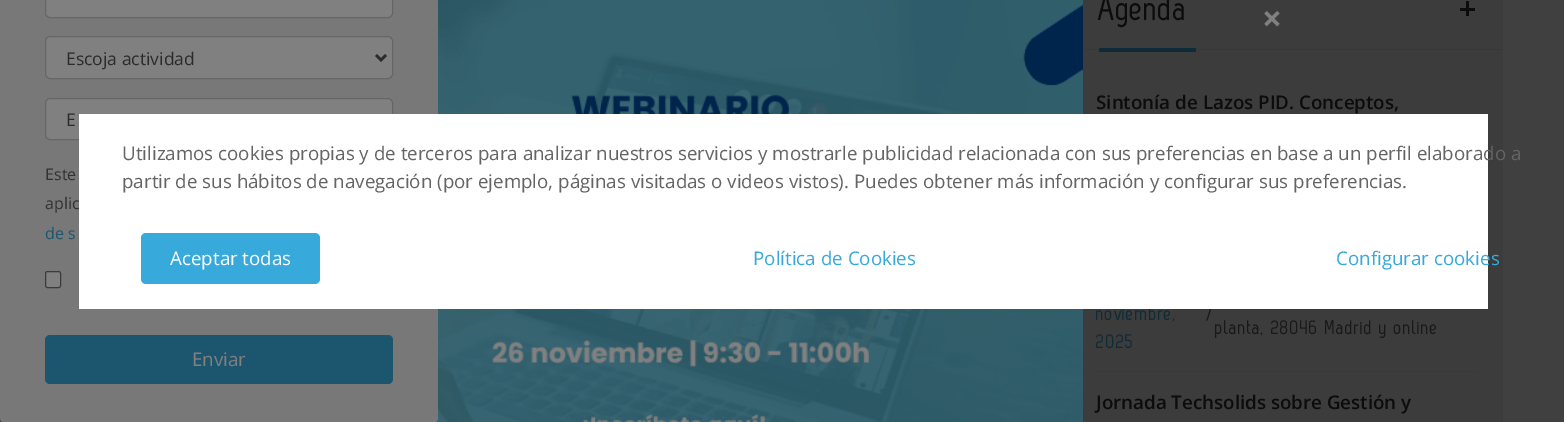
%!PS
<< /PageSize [1564 422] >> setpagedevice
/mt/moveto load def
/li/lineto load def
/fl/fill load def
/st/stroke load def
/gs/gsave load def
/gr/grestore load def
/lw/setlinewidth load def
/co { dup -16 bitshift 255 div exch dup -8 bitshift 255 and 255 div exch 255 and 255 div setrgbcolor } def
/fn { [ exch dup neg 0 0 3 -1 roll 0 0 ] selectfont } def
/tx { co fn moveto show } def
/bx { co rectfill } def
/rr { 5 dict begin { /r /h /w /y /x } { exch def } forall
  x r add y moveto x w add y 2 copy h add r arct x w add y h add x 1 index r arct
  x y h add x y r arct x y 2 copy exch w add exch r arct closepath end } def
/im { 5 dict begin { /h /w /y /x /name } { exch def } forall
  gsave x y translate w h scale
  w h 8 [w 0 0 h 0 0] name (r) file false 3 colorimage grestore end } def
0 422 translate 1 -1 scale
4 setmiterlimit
0 0 1564 422 16#404040 bx
1083 0 420 422 16#3C3C3C bx
1083 49 420 1 16#383838 bx
1460 8 15 3 16#0C0C0C bx
1466 1 3 15 16#0C0C0C bx
1099 48 97 4 16#0E2B37 bx
1096 371 382 1 16#393939 bx
(media/1.raw) 436 0 647 422 im
16#787878 co
0 -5 438 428 5 rr fl
16#808080 co
45.5 -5.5 347 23 4.5 rr gs fl gr
16#666666 co
st
16#808080 co
45.5 36.5 347 42 4.5 rr gs fl gr
16#666666 co
st
16#2B2B2B co
2.5 lw
376 55 mt 381 60 li 386 55 li st
16#808080 co
45.5 98.5 347 41 4.5 rr gs fl gr
16#666666 co
1 lw
st
16#808080 co
45.5 271.5 15 16 2 rr gs fl gr
16#3B3B3B co
st
16#1C556E co
45 335 348 49 5 rr fl
(Agenda) 1098 20 /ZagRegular-Regular 35 16#0C0C0C tx
(Sintonía de Lazos PID. Conceptos,) 1096 109 /OpenSans-SemiBold 18.75 16#0C0C0C tx
/ZagRegular-Regular 20 fn
16#0E2B37 co
1096 320 mt .7 0 (noviembre,) ashow
1096 348 mt .7 0 (2025) ashow
16#191919 co
1207 320 mt .7 0 (/) ashow
1215 334 mt .7 0 (planta, 28046 Madrid y online) ashow
(Jornada Techsolids sobre Gestión y) 1096 409 /OpenSans-SemiBold 18.75 16#0C0C0C tx
(×) 1262 31 /OpenSans-Bold 35 16#808080 tx
(Escoja actividad) 66 65 /OpenSans-Regular 17.5 16#2B2B2B tx
(E) 66 126 /OpenSans-Regular 17.5 16#2B2B2B tx
(Este) 45 180 /OpenSans-Regular 16 16#323232 tx
(aplic) 45 209 /OpenSans-Regular 16 16#323232 tx
(de s) 45 239 /OpenSans-Regular 16 16#1C556E tx
(Enviar) 192 366 /OpenSans-Regular 18.75 16#808080 tx
79 114 1409 195 16#FFFFFF bx
(Utilizamos cookies propias y de terceros para analizar nuestros servicios y mostrarle publicidad relacionada con sus preferencias en base a un perfil elaborado a) 122 160 /OpenSans-Regular 18.75 16#646464 tx
(partir de sus hábitos de navegación \(por ejemplo, páginas visitadas o videos vistos\). Puedes obtener más información y configurar sus preferencias.) 122 188 /OpenSans-Regular 18.75 16#646464 tx
16#38A9DB co
141 233 179 51 5 rr fl
(Aceptar todas) 170 265 /OpenSans-Regular 18.75 16#FFFFFF tx
(Política de Cookies) 753 265 /OpenSans-Regular 18.75 16#38A9DB tx
(Configurar cookies) 1336 265 /OpenSans-Regular 18.75 16#38A9DB tx
showpage
